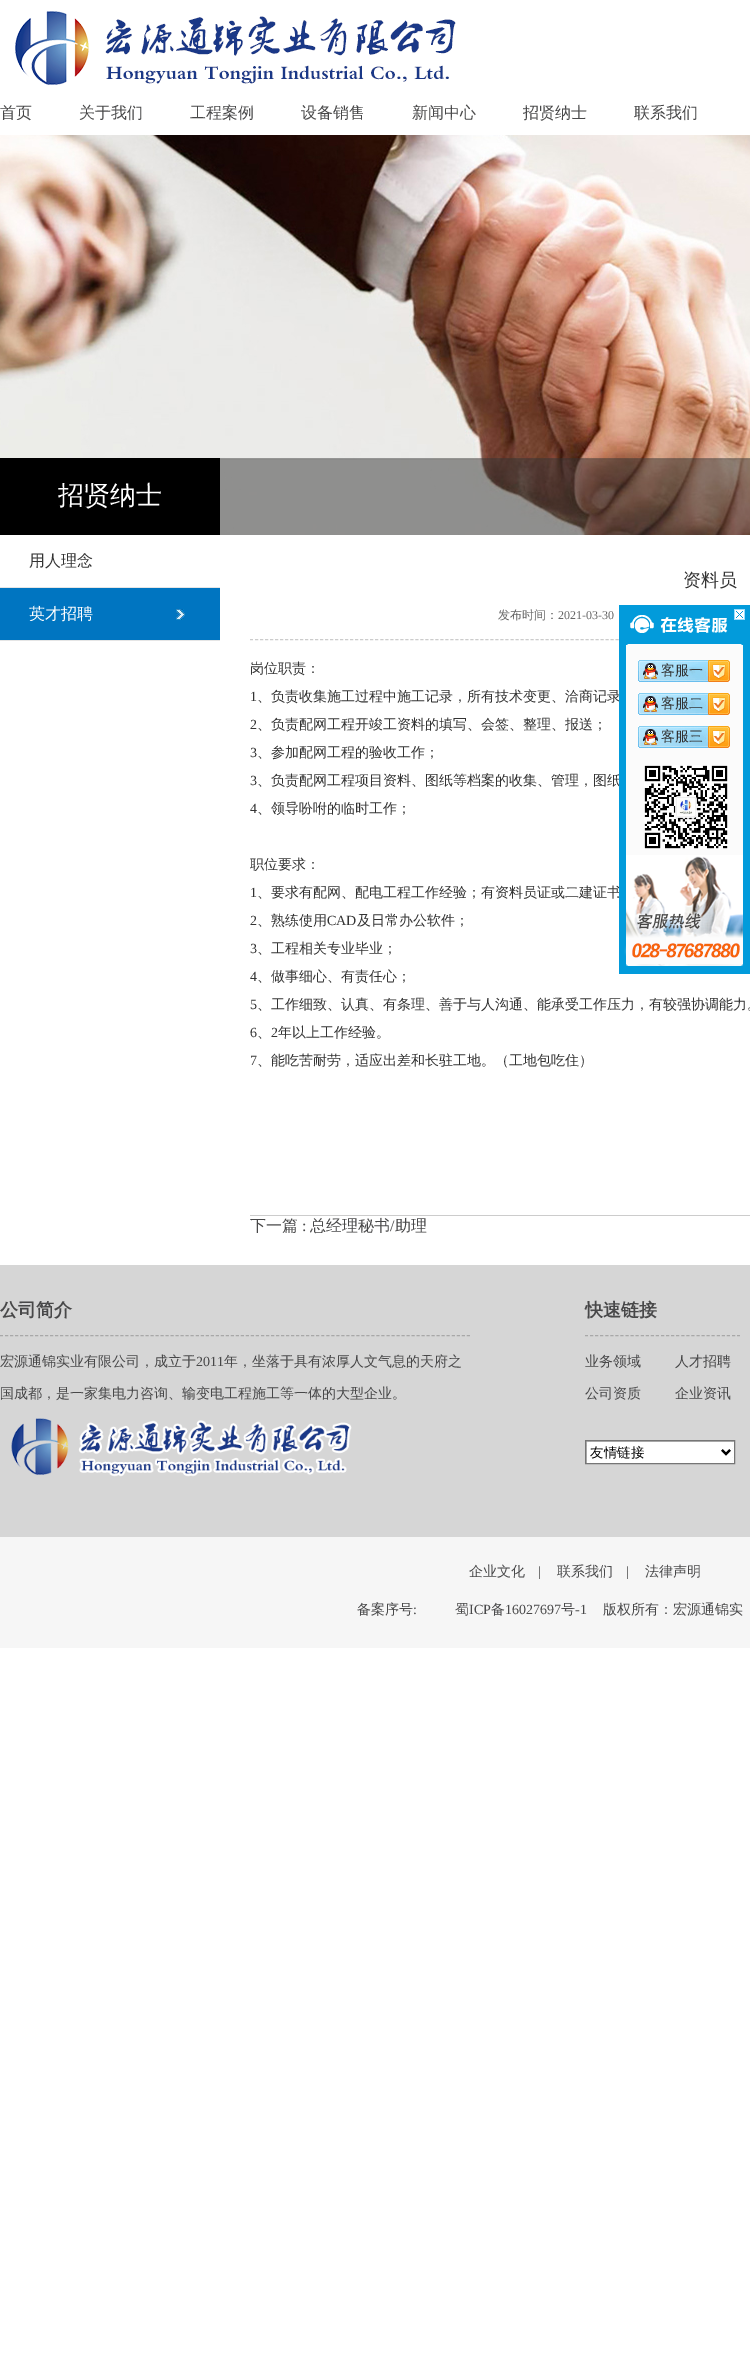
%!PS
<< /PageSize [750 2366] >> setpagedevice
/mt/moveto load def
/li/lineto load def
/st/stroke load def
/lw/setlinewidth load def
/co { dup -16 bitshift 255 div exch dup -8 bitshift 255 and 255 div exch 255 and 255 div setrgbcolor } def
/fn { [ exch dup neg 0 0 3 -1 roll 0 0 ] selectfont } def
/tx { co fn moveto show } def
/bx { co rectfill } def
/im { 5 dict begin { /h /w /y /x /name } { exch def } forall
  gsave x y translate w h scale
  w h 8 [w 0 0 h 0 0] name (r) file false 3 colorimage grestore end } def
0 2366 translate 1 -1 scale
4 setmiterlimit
0 0 750 2366 16#FFFFFF bx
(media/1.raw) 15 11 441 74 im
(media/2.raw) 0 135 750 400 im
(media/3.raw) 220 458 530 77 im
0 458 220 77 16#000000 bx
0 587 220 1 16#E5E5E5 bx
0 588 220 52 16#0075C1 bx
(media/4.raw) 176 609 9 11 im
0 640 220 1 16#E5E5E5 bx
16#CCCCCC co
[3 2.01] 0 setdash
250 639.5 mt 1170 639.5 li st
250 1215 500 1 16#CCCCCC bx
(media/5.raw) 619 605 131 40 im
(media/6.raw) 734 609 11 11 im
626 645 117 210 16#FBFBFB bx
743 645 7 210 16#029BDB bx
(media/7.raw) 638 660 92 22 im
(media/7.raw) 638 693 92 22 im
(media/7.raw) 638 726 92 22 im
(media/8.raw) 644 765 84 84 im
0 1265 750 272 16#D6D6D6 bx
16#A8A8A8 co
[3 2.02] 0 setdash
0 1335.5 mt 470 1335.5 li st
(media/10.raw) 11 1418 341 59 im
[3 2.07] 0 setdash
585 1335.5 mt 740 1335.5 li st
(media/11.raw) 586 1441 148 22 im
16#767676 co
[] 0 setdash
585.5 1440.5 149 23 rectstroke
16#000000 co
2 lw
722 1450 mt 726 1454 li 730 1450 li st
0 1537 750 111 16#F6F6F6 bx
(首页) 0 118 /WenQuanYiZenHei-Medium 16 16#484849 tx
(关于我们) 79 118 /WenQuanYiZenHei-Medium 16 16#484849 tx
(工程案例) 190 118 /WenQuanYiZenHei-Medium 16 16#484849 tx
(设备销售) 301 118 /WenQuanYiZenHei-Medium 16 16#484849 tx
(新闻中心) 412 118 /WenQuanYiZenHei-Medium 16 16#484849 tx
(招贤纳士) 523 118 /WenQuanYiZenHei-Medium 16 16#484849 tx
(联系我们) 634 118 /WenQuanYiZenHei-Medium 16 16#484849 tx
(招贤纳士) 58 504 /WenQuanYiZenHei-Medium 26 16#FFFFFF tx
(用人理念) 29 566 /WenQuanYiZenHei-Medium 16 16#333333 tx
(英才招聘) 29 619 /WenQuanYiZenHei-Medium 16 16#FFFFFF tx
(资料员) 683 586 /WenQuanYiZenHei-Medium 18 16#333333 tx
(发布时间：) 498 619 /WenQuanYiZenHei-Medium 12 16#666666 tx
(2021-03-30) 558 619 /LiberationSerif-Regular 12 16#666666 tx
(岗位职责：) 250 673 /WenQuanYiZenHei-Medium 14 16#333333 tx
(1) 250 701 /LiberationSerif-Regular 14 16#333333 tx
(、负责收集施工过程中施工记录，所有技术变更、洽商记录) 257 701 /WenQuanYiZenHei-Medium 14 16#333333 tx
(2) 250 729 /LiberationSerif-Regular 14 16#333333 tx
(、负责配网工程开竣工资料的填写、会签、整理、报送；) 257 729 /WenQuanYiZenHei-Medium 14 16#333333 tx
(3) 250 757 /LiberationSerif-Regular 14 16#333333 tx
(、参加配网工程的验收工作；) 257 757 /WenQuanYiZenHei-Medium 14 16#333333 tx
(3) 250 785 /LiberationSerif-Regular 14 16#333333 tx
(、负责配网工程项目资料、图纸等档案的收集、管理，图纸) 257 785 /WenQuanYiZenHei-Medium 14 16#333333 tx
(4) 250 813 /LiberationSerif-Regular 14 16#333333 tx
(、领导吩咐的临时工作；) 257 813 /WenQuanYiZenHei-Medium 14 16#333333 tx
(职位要求：) 250 869 /WenQuanYiZenHei-Medium 14 16#333333 tx
(1) 250 897 /LiberationSerif-Regular 14 16#333333 tx
(、要求有配网、配电工程工作经验；有资料员证或二建证书) 257 897 /WenQuanYiZenHei-Medium 14 16#333333 tx
(2) 250 925 /LiberationSerif-Regular 14 16#333333 tx
(、熟练使用) 257 925 /WenQuanYiZenHei-Medium 14 16#333333 tx
(CAD) 327 925 /LiberationSerif-Regular 14 16#333333 tx
(及日常办公软件；) 357 925 /WenQuanYiZenHei-Medium 14 16#333333 tx
(3) 250 953 /LiberationSerif-Regular 14 16#333333 tx
(、工程相关专业毕业；) 257 953 /WenQuanYiZenHei-Medium 14 16#333333 tx
(4) 250 981 /LiberationSerif-Regular 14 16#333333 tx
(、做事细心、有责任心；) 257 981 /WenQuanYiZenHei-Medium 14 16#333333 tx
(5) 250 1009 /LiberationSerif-Regular 14 16#333333 tx
(、工作细致、认真、有条理、善于与人沟通、能承受工作压力，有较强协调能力。) 257 1009 /WenQuanYiZenHei-Medium 14 16#333333 tx
(6) 250 1037 /LiberationSerif-Regular 14 16#333333 tx
(、) 257 1037 /WenQuanYiZenHei-Medium 14 16#333333 tx
(2) 271 1037 /LiberationSerif-Regular 14 16#333333 tx
(年以上工作经验。) 278 1037 /WenQuanYiZenHei-Medium 14 16#333333 tx
(7) 250 1065 /LiberationSerif-Regular 14 16#333333 tx
(、能吃苦耐劳，适应出差和长驻工地。（工地包吃住）) 257 1065 /WenQuanYiZenHei-Medium 14 16#333333 tx
(下一篇) 250 1231 /WenQuanYiZenHei-Medium 16 16#484849 tx
(:) 302 1231 /LiberationSerif-Regular 16 16#484849 tx
(总经理秘书) 310 1231 /WenQuanYiZenHei-Medium 16 16#484849 tx
(/) 390 1231 /LiberationSerif-Regular 16 16#484849 tx
(助理) 395 1231 /WenQuanYiZenHei-Medium 16 16#484849 tx
619 645 7 210 16#029BDB bx
(客服一) 661 675 /WenQuanYiZenHei-Medium 14 16#333333 tx
(客服二) 661 708 /WenQuanYiZenHei-Medium 14 16#333333 tx
(客服三) 661 741 /WenQuanYiZenHei-Medium 14 16#333333 tx
(media/9.raw) 619 855 131 119 im
(公司简介) 0 1316 /WenQuanYiZenHei-Bold 18 16#484849 tx
(宏源通锦实业有限公司，成立于) 0 1366 /WenQuanYiZenHei-Medium 14 16#484849 tx
(2011) 196 1366 /LiberationSerif-Regular 14 16#484849 tx
(年，坐落于具有浓厚人文气息的天府之) 224 1366 /WenQuanYiZenHei-Medium 14 16#484849 tx
(国成都，是一家集电力咨询、输变电工程施工等一体的大型企业。) 0 1398 /WenQuanYiZenHei-Medium 14 16#484849 tx
(快速链接) 585 1316 /WenQuanYiZenHei-Bold 18 16#484849 tx
(业务领域) 585 1366 /WenQuanYiZenHei-Medium 14 16#484849 tx
(人才招聘) 675 1366 /WenQuanYiZenHei-Medium 14 16#484849 tx
(公司资质) 585 1398 /WenQuanYiZenHei-Medium 14 16#484849 tx
(企业资讯) 675 1398 /WenQuanYiZenHei-Medium 14 16#484849 tx
(友情链接) 590 1457 /WenQuanYiZenHei-Medium 13.5 16#000000 tx
(企业文化) 469 1576 /WenQuanYiZenHei-Medium 14 16#484849 tx
(|) 538 1576 /LiberationSerif-Regular 14 16#484849 tx
(联系我们) 557 1576 /WenQuanYiZenHei-Medium 14 16#484849 tx
(|) 626 1576 /LiberationSerif-Regular 14 16#484849 tx
(法律声明) 645 1576 /WenQuanYiZenHei-Medium 14 16#484849 tx
(备案序号) 357 1614 /WenQuanYiZenHei-Medium 14 16#484849 tx
(:) 413 1614 /LiberationSerif-Regular 14 16#484849 tx
(蜀) 455 1614 /WenQuanYiZenHei-Medium 14 16#484849 tx
(ICP) 469 1614 /LiberationSerif-Regular 14 16#484849 tx
(备) 491 1614 /WenQuanYiZenHei-Medium 14 16#484849 tx
(16027697) 505 1614 /LiberationSerif-Regular 14 16#484849 tx
(号) 561 1614 /WenQuanYiZenHei-Medium 14 16#484849 tx
(-1) 575 1614 /LiberationSerif-Regular 14 16#484849 tx
(版权所有：宏源通锦实) 603 1614 /WenQuanYiZenHei-Medium 14 16#484849 tx
showpage
